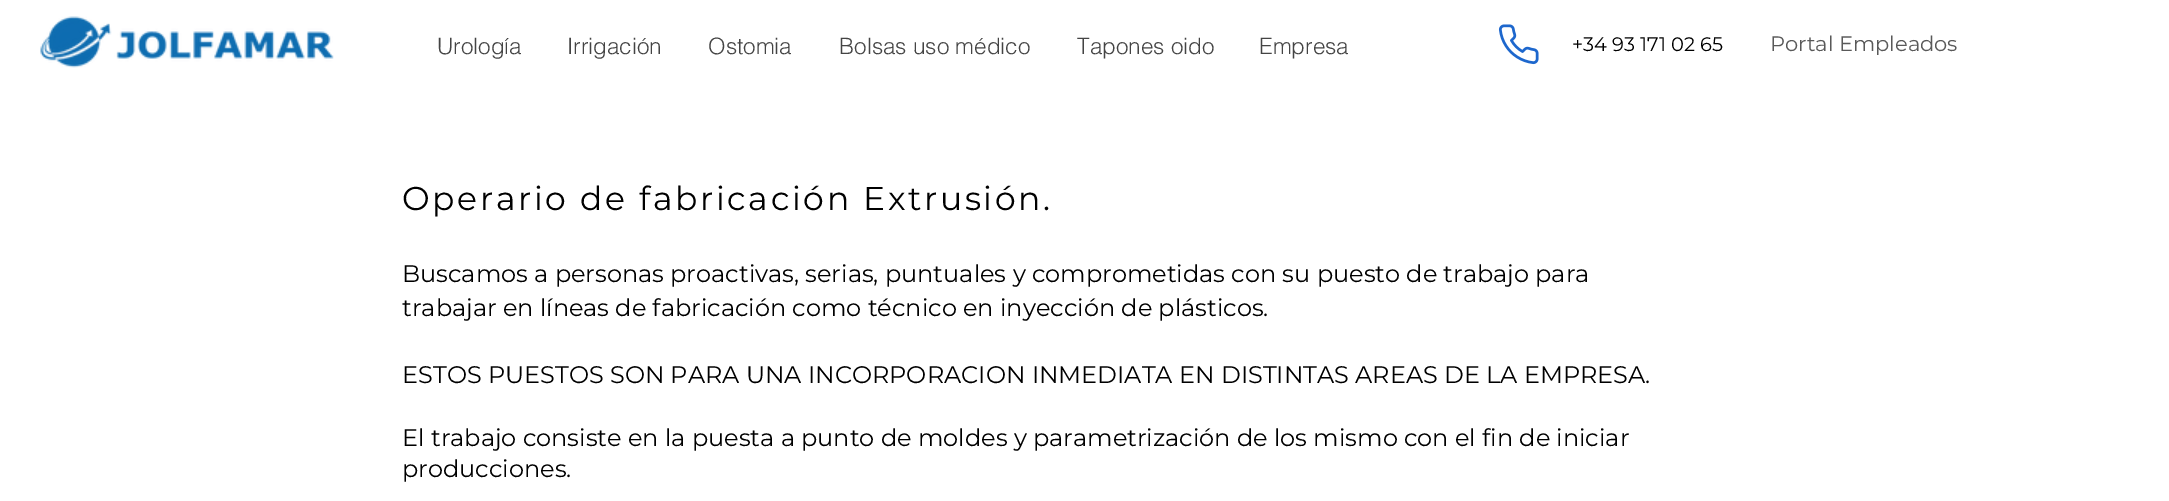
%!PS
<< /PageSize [2169 501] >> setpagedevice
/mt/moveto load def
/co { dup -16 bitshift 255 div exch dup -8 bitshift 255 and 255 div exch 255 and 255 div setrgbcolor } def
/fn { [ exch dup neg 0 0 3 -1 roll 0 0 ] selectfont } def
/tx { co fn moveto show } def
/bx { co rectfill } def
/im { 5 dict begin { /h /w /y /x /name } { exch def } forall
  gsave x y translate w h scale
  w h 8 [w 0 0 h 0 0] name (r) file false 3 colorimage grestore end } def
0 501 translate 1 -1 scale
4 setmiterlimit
0 0 2169 501 16#FFFFFF bx
(media/1.raw) 40 16 294 52 im
(media/2.raw) 1498 24 41 41 im
(Urología) 437 54 /helvetica-Light 22.5 16#444444 tx
(Irrigación) 567 54 /helvetica-Light 22.5 16#444444 tx
(Ostomia) 708 54 /helvetica-Light 22.5 16#444444 tx
(Bolsas uso médico) 839 54 /helvetica-Light 22.5 16#444444 tx
(Tapones oido) 1077 54 /helvetica-Light 22.5 16#444444 tx
(Empresa) 1259 54 /helvetica-Light 22.5 16#444444 tx
(+34 93 171 02 65) 1572 51 /Montserrat-Regular 19.5 16#000000 tx
(Portal Empleados) 1770 51 /Montserrat-Regular 21 16#595959 tx
/Montserrat-Regular 33 fn
16#000000 co
402 210 mt 2.65 0 (Operario de fabricación Extrusión.) ashow
(Buscamos a personas proactivas, serias, puntuales y comprometidas con su puesto de trabajo para) 402 282 /Montserrat-Regular 24 16#000000 tx
(trabajar en líneas de fabricación como técnico en inyección de plásticos.) 402 316 /Montserrat-Regular 24 16#000000 tx
(ESTOS PUESTOS SON PARA UNA INCORPORACION INMEDIATA EN DISTINTAS AREAS DE LA EMPRESA.) 402 383 /Montserrat-Regular 24 16#000000 tx
(El trabajo consiste en la puesta a punto de moldes y parametrización de los mismo con el fin de iniciar) 402 446 /Montserrat-Regular 24 16#000000 tx
(producciones.) 402 477 /Montserrat-Regular 24 16#000000 tx
showpage
